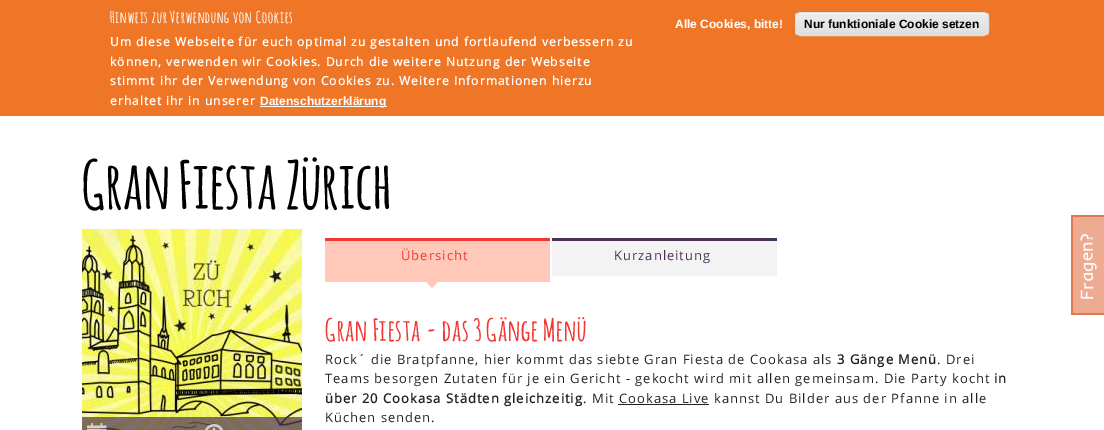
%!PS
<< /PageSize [1104 430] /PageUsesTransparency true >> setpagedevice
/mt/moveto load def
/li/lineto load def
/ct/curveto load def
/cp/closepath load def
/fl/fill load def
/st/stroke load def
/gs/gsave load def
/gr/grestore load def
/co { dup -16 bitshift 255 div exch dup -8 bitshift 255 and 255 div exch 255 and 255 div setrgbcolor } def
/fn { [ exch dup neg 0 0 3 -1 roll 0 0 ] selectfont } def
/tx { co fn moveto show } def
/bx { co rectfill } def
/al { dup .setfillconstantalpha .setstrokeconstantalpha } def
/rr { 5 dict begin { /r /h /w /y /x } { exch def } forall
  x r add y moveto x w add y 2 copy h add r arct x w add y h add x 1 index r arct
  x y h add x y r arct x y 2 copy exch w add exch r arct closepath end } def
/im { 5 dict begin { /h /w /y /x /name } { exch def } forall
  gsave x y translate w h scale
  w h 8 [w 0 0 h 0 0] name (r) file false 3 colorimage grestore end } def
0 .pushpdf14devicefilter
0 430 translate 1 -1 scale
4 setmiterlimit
0 0 1104 430 16#FFFFFF bx
0 0 1104 116 16#EF7626 bx
260 106 127 1 16#FFFFFF bx
gs
795 12 194 24 6 rr clip newpath
gs 795 13 mt 989 13 li 989 35 li 795 35 li cp clip newpath
<< /ShadingType 2 /ColorSpace /DeviceRGB /Coords [892 13 892 35] /Extend [true true] /Function << /FunctionType 3 /Domain [0 1] /Functions [<< /FunctionType 2 /Domain [0 1] /C0 [.929 .929 .929] /C1 [.929 .929 .929] /N 1 >> << /FunctionType 2 /Domain [0 1] /C0 [.929 .929 .929] /C1 [.875 .875 .875] /N 1 >>] /Bounds [.05] /Encode [0 1 0 1] >> >> shfill gr
gr
801 14 mt 983 14 li 986 14 988 16 988 18 ct 988 15 986 13 983 13 ct 801 13 li 798 13 796 15 796 18 ct 796 20 li 796 17 797 14 801 14 ct cp 988 27 mt 988 32 li cp eofill
16#DCDCDC co
795.5 12.5 193 23 5.5 rr st
(media/1.raw) 82 229 220 201 im
0.7 al
82 417 220 13 16#4A3255 bx
1 al
(media/2.raw) 87 423 20 7 im
(media/3.raw) 205 424 18 6 im
325 241 225 41 16#FFC8B9 bx
325 238 225 3 16#F03730 bx
16#FFC8B9 co
425 281 mt 439 281 li 432 288 li cp fl
552 241 225 35 16#F3F3F3 bx
552 238 225 3 16#4A3255 bx
618 404 91 1 16#222222 bx
(media/4.raw) 1071 215 33 100 im
/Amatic-Bold 16 fn
16#FFFFFF co
110 23 mt 1 0 (Hinweis zur Verwendung von Cookies) ashow
/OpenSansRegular-Bold 12 fn
110 46 mt 1 0 (Um diese Webseite für euch optimal zu gestalten und fortlaufend verbessern zu) ashow
110 66 mt 1 0 (können, verwenden wir Cookies. Durch die weitere Nutzung der Webseite) ashow
110 85 mt 1 0 (stimmt ihr der Verwendung von Cookies zu. Weitere Informationen hierzu) ashow
110 105 mt 1 0 (erhaltet ihr in unserer) ashow
(Datenschutzerklärung) 260 105 /LiberationSans-Bold 12 16#FFFFFF tx
(Alle Cookies, bitte!) 675 28 /LiberationSans-Bold 12 16#FFFFFF tx
(Nur funktioniale Cookie setzen) 804 28 /LiberationSans-Bold 12 16#000000 tx
/Amatic-Bold 65 fn
82 209 mt 1 0 (Gran Fiesta Zürich) ashow
/OpenSansRegular-Regular 13 fn
16#F03730 co
401 260 mt 1 0 (Übersicht) ashow
16#4A3255 co
614 260 mt 1 0 (Kurzanleitung) ashow
/Amatic-Bold 30 fn
16#F03730 co
325 341 mt 1 0 (Gran Fiesta - das 3 Gänge Menü) ashow
/OpenSansRegular-Regular 13 fn
16#222222 co
325 364 mt 1 0 (Rock´ die Bratpfanne, hier kommt das siebte Gran Fiesta de Cookasa als) ashow
/OpenSansRegular-Bold 13 fn
837 364 mt 1 0 (3 Gänge Menü) ashow
/OpenSansRegular-Regular 13 fn
937 364 mt 1 0 (. Drei) ashow
325 383 mt 1 0 (Teams besorgen Zutaten für je ein Gericht - gekocht wird mit allen gemeinsam. Die Party kocht) ashow
/OpenSansRegular-Bold 13 fn
994 383 mt 1 0 (in) ashow
325 403 mt 1 0 (über 20 Cookasa Städten gleichzeitig) ashow
/OpenSansRegular-Regular 13 fn
583 403 mt 1 0 (. Mit Cookasa Live kannst Du Bilder aus der Pfanne in alle) ashow
325 422 mt 1 0 (Küchen senden.) ashow
.poppdf14devicefilter showpage
